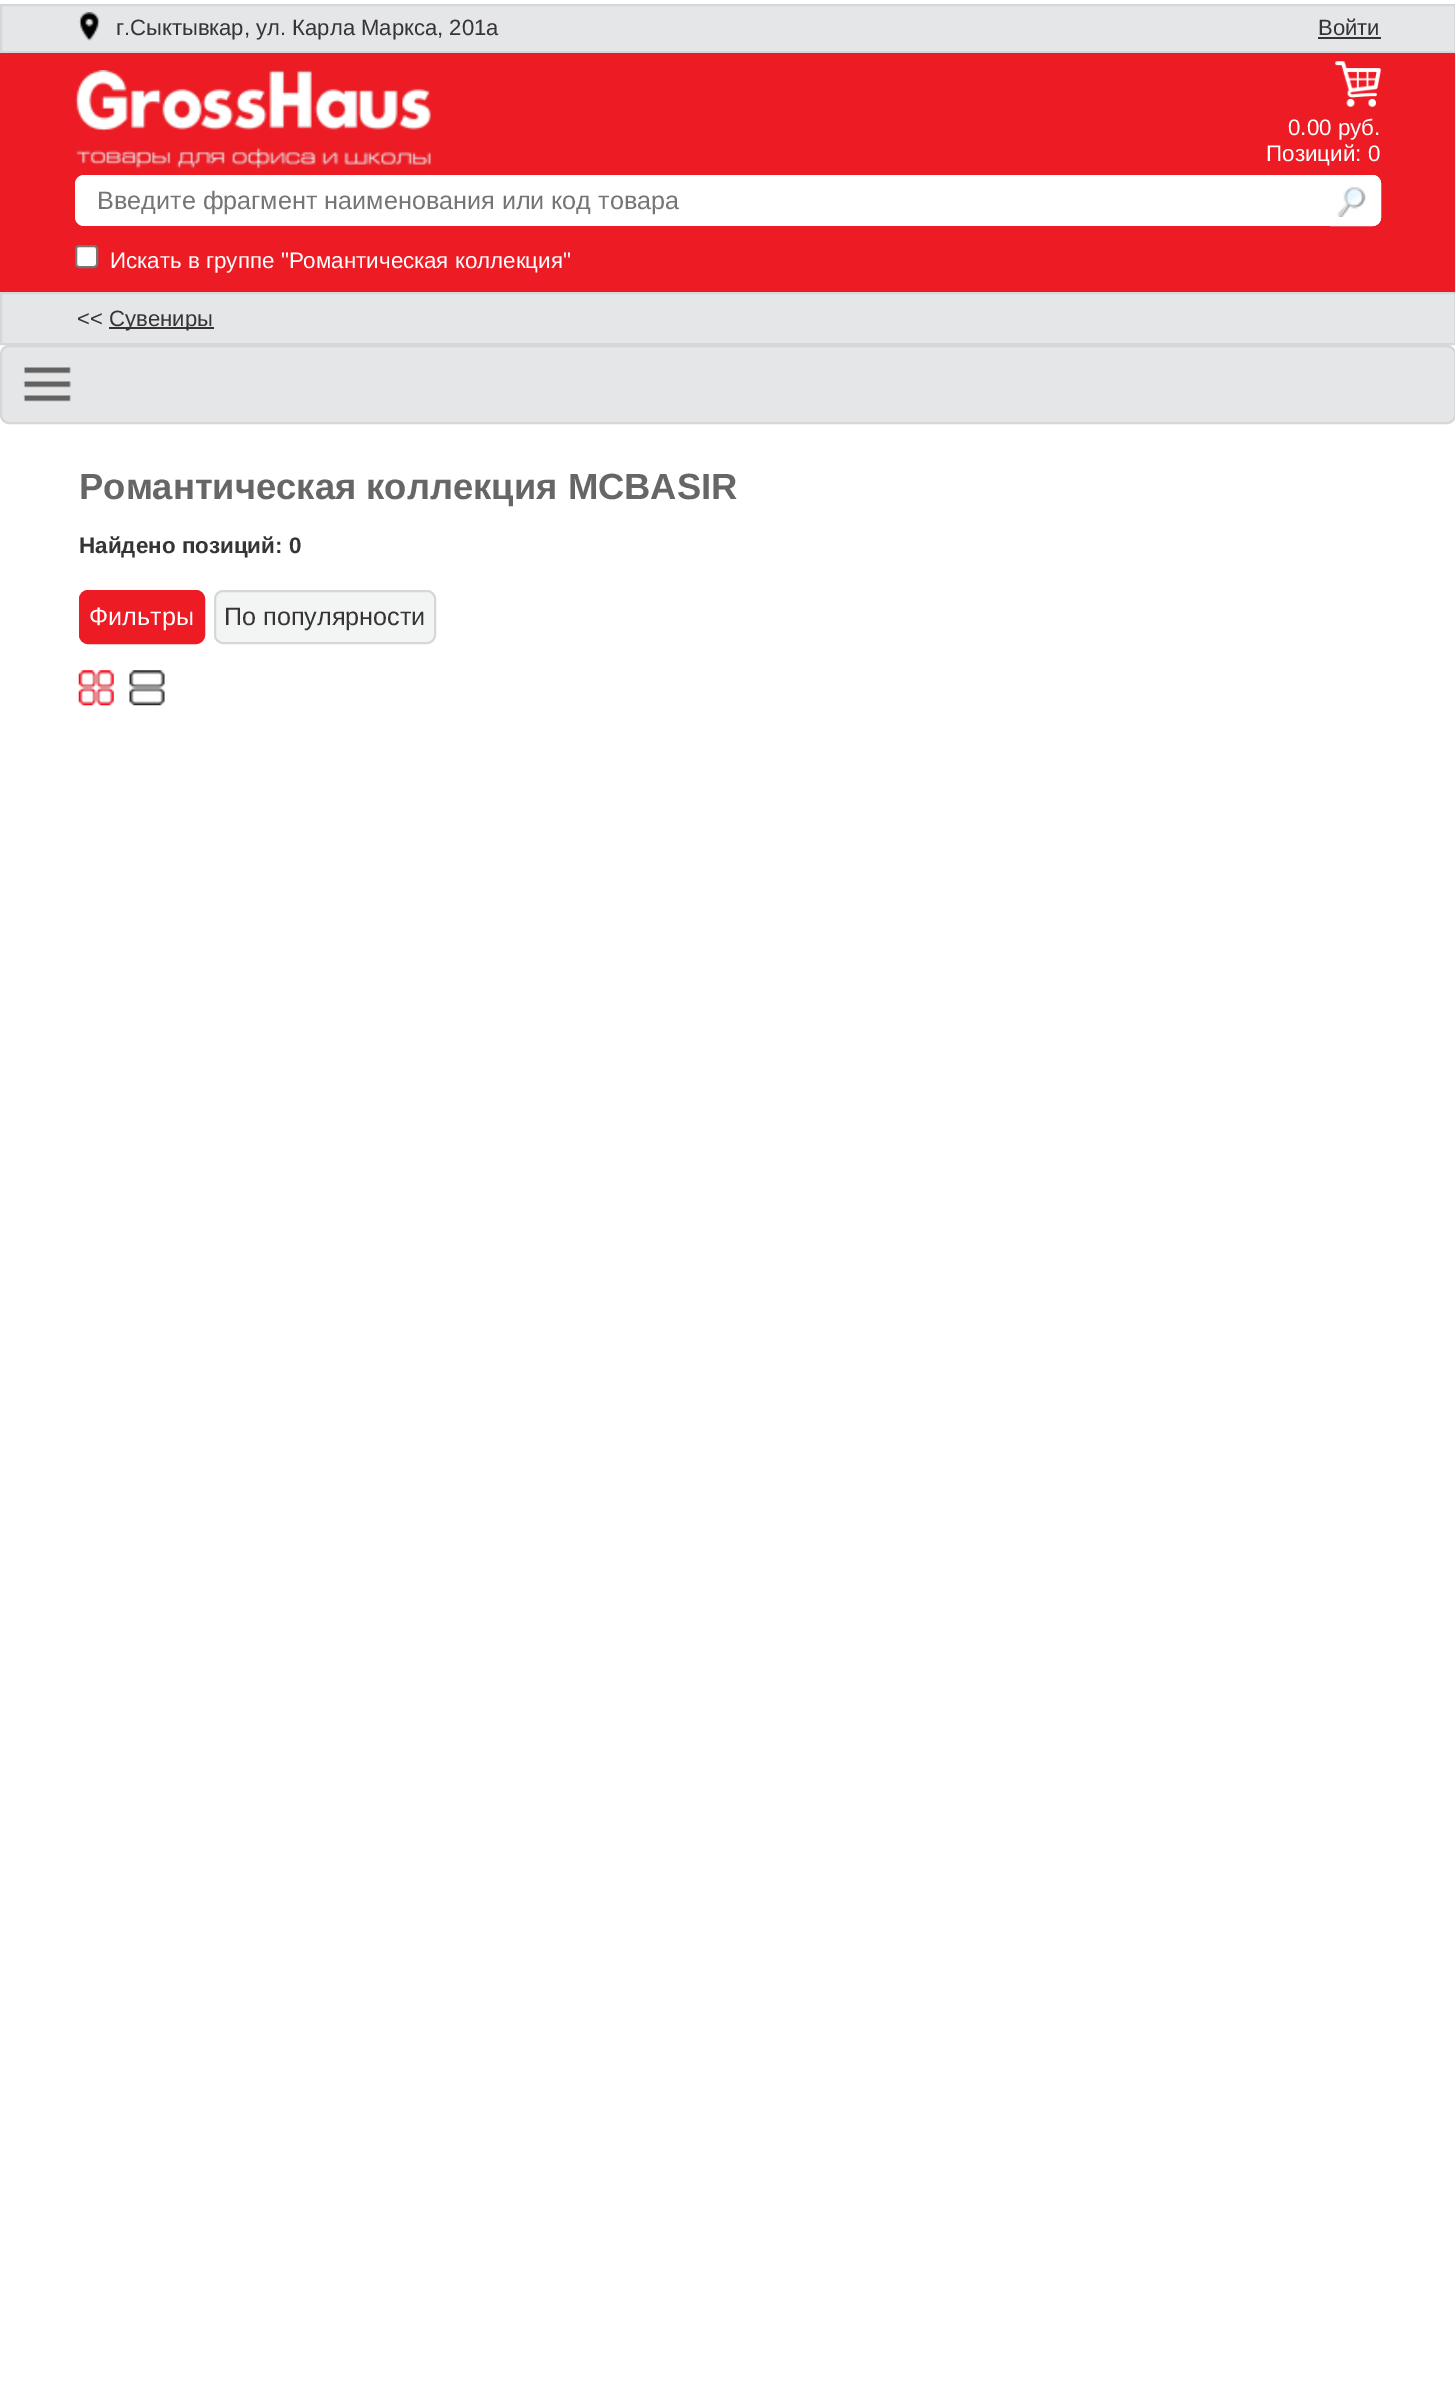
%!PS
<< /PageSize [1455 2401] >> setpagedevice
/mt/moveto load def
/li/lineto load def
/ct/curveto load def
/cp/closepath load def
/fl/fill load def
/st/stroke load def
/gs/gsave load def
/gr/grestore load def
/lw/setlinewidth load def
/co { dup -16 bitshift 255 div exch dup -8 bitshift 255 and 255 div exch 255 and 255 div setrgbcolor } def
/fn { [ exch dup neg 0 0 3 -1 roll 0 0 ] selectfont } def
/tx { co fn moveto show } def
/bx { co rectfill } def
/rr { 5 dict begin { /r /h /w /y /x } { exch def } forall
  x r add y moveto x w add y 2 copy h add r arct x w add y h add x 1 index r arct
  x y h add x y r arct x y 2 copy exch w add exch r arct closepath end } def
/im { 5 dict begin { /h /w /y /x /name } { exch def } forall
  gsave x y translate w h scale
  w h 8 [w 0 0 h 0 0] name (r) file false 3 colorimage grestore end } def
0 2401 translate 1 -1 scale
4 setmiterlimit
0 0 1455 2401 16#FFFFFF bx
16#E5E6E8 co
1 5 mt 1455 5 li 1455 52 li 1 52 li cp gs fl gr
16#D6D7D9 co
2 lw
st
(media/1.raw) 78 12 22 29 im
1318 37 63 2 16#363434 bx
0 53 1455 239 16#ED1B24 bx
(media/2.raw) 75 70 356 99 im
(media/3.raw) 1335 61 46 46 im
16#FFFFFF co
75 175 1306 51 9 rr fl
1330 175 mt 1372 175 li 1377 175 1381 179 1381 184 ct 1381 217 li 1381 222 1377 226 1372 226 ct 1330 226 li cp fl
(media/4.raw) 1337 186 29 31 im
1331 176 mt 1372 176 li 1376.5 176 1380 179.5 1380 184 ct 1380 217 li 1380 221.5 1376.5 225 1372 225 ct 1331 225 li cp st
76 246 21 21 3 rr gs fl gr
16#767676 co
st
16#E5E6E8 co
1 293 mt 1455 293 li 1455 344 li 1 344 li cp gs fl gr
16#D6D7D9 co
st
109 327 105 2 16#363434 bx
16#E5E6E8 co
1 346 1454 77 8 rr gs fl gr
16#D6D7D9 co
st
(media/5.raw) 23 367 49 35 im
16#ED1B24 co
80 591 124 52 8 rr gs fl gr
st
16#F3F5F4 co
215 591 220 52 8 rr gs fl gr
16#D6D7D9 co
st
(media/6.raw) 78 670 36 36 im
(media/7.raw) 129 670 36 36 im
(г.Сыктывкар, ул. Карла Маркса, 201а) 116 35 /LiberationSans-Regular 22.1 16#363434 tx
(Войти) 1318 35 /LiberationSans-Regular 22.1 16#363434 tx
(0.00 руб.) 1288 135 /LiberationSans-Regular 22.4 16#FFFFFF tx
(Позиций: 0) 1266 161 /LiberationSans-Regular 22.4 16#FFFFFF tx
(Введите фрагмент наименования или код товара) 97 209 /LiberationSans-Regular 25.2 16#757575 tx
(Искать в группе "Романтическая коллекция") 110 268 /LiberationSans-Regular 22.4 16#FFFFFF tx
(<<) 77 326 /LiberationSans-Regular 22.1 16#363434 tx
(Сувениры) 109 326 /LiberationSans-Regular 22.1 16#363434 tx
(Романтическая коллекция MCBASIR) 79 499 /LiberationSans-Bold 36.4 16#666666 tx
(Найдено позиций: 0) 79 553 /LiberationSans-Bold 22.4 16#363434 tx
(Фильтры) 89 625 /LiberationSans-Regular 25.2 16#FFFFFF tx
(По популярности) 224 625 /LiberationSans-Regular 25.2 16#363434 tx
showpage
